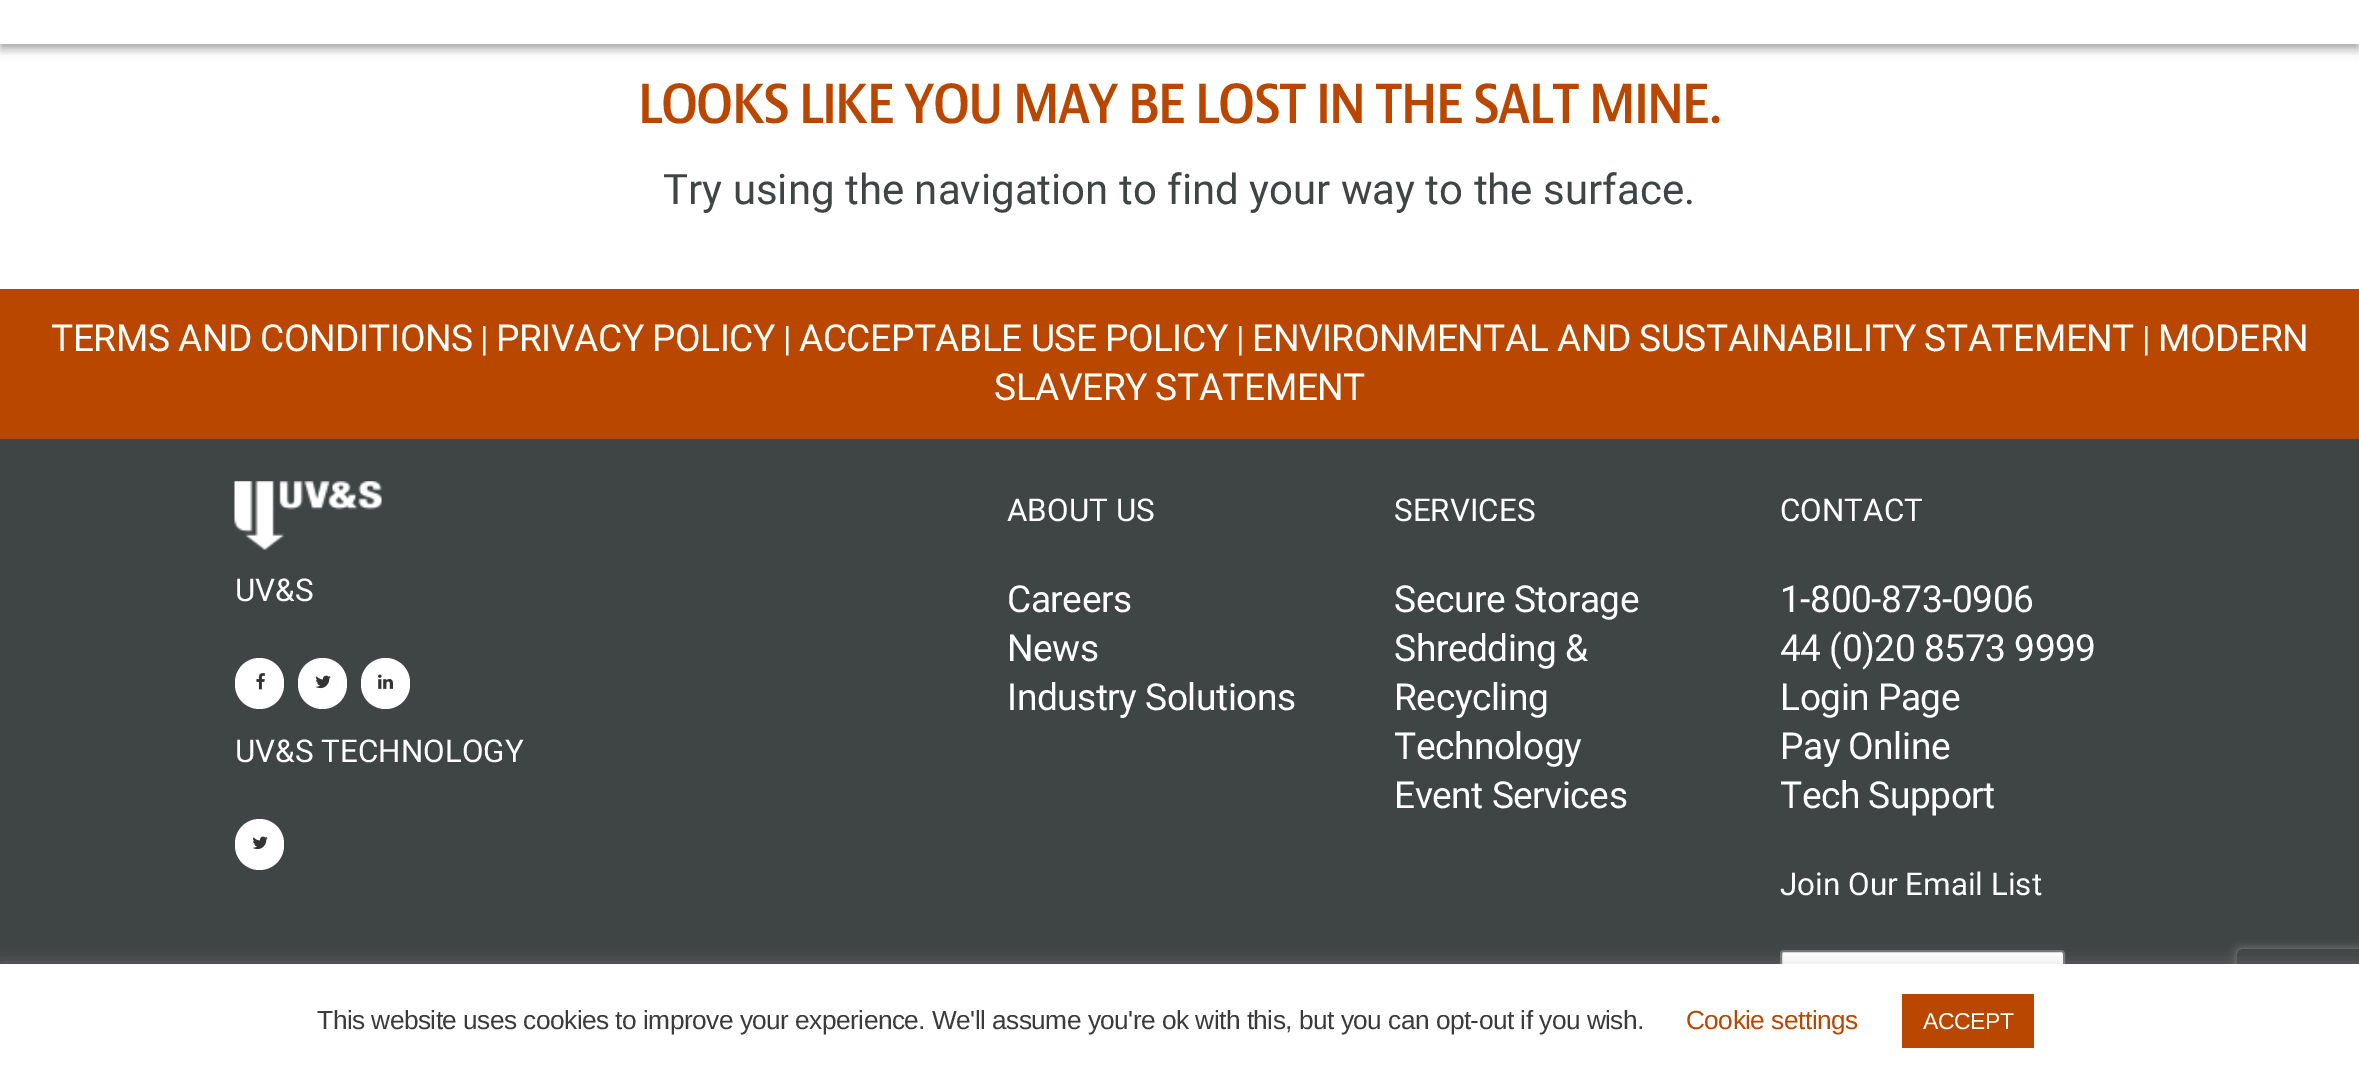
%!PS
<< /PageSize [2359 1078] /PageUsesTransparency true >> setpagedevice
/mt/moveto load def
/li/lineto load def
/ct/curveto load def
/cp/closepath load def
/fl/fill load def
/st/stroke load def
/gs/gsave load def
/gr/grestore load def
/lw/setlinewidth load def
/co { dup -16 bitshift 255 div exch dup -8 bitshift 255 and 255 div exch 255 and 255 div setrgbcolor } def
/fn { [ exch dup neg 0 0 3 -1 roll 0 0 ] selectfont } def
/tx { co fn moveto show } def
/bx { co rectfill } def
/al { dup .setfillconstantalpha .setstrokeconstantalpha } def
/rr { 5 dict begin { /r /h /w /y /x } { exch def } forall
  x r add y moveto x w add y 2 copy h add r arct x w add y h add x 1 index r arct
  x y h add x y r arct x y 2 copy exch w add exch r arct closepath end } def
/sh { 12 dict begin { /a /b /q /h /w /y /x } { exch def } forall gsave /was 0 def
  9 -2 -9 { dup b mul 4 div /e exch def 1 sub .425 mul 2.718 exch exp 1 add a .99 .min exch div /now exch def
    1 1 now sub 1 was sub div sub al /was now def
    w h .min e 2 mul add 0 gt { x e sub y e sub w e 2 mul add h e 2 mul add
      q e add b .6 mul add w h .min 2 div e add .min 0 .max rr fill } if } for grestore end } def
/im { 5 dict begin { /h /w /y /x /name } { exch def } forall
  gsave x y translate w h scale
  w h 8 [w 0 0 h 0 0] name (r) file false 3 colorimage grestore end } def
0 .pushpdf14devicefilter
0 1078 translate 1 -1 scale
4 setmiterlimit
0 0 2359 1078 16#FFFFFF bx
gs
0 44 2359 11 rectclip
16#000000 co
0 -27 2359 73 0 9 .12 sh
gr
gs
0 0 mt 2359 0 li 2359 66 li 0 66 li cp 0 -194 mt 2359 -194 li 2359 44 li 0 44 li cp eoclip newpath
16#000000 co
0 -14 2359 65 0 4.5 .14 sh
gr
gs
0 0 mt 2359 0 li 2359 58 li 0 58 li cp 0 -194 mt 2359 -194 li 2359 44 li 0 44 li cp eoclip newpath
16#000000 co
2 -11 2355 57 0 3.5 .2 sh
gr
0 289 2359 150 16#B94700 bx
0 439 2359 525 16#3F4444 bx
(media/1.raw) 234 481 148 69 im
16#FFFFFF co
235 658 49 51 24.5 rr fl
(media/2.raw) 256 673 9 17 im
298 658 49 51 24.5 rr fl
(media/3.raw) 315 675 16 14 im
361 658 49 51 24.5 rr fl
(media/4.raw) 378 674 15 15 im
235 819 49 51 24.5 rr fl
(media/3.raw) 252 836 16 14 im
1781 951 283 35 3 rr gs fl gr
16#767676 co
2 lw
st
16#ACABAB co
0 963 2359 113 0 9 .3 sh
gs
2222 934 mt 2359 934 li 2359 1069 li 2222 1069 li cp 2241 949 mt 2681 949 li 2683 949 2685 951 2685 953 ct 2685 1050 li 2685 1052 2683 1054 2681 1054 ct 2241 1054 li 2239 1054 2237 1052 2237 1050 ct 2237 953 li 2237 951 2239 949 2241 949 ct cp eoclip newpath
16#808080 co
2237 949 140 105 4 4.5 1 sh
gr
0 964 2359 114 16#FFFFFF bx
1902 994 132 54 16#B94700 bx
/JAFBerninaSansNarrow-SemiBold 56 fn
638 123 mt -1.75 0 (LOOKS LIKE YOU MAY BE LOST IN THE SALT MINE.) ashow
(Try using the navigation to find your way to the surface.) 663 204 /Roboto-Regular 42 16#3F4444 tx
/Roboto-Regular 37.2 fn
16#FFFFFF co
51 351 mt -.53 0 (TERMS AND CONDITIONS) ashow
/Roboto-Regular 35 fn
480 351 mt -.53 0 (|) ashow
/Roboto-Regular 37.2 fn
496 351 mt -.53 0 (PRIVACY POLICY) ashow
/Roboto-Regular 35 fn
783 351 mt -.53 0 (|) ashow
/Roboto-Regular 37.2 fn
799 351 mt -.53 0 (ACCEPTABLE USE POLICY) ashow
/Roboto-Regular 35 fn
1236 351 mt -.53 0 (|) ashow
/Roboto-Regular 37.2 fn
1252 351 mt -.53 0 (ENVIRONMENTAL AND SUSTAINABILITY STATEMENT) ashow
/Roboto-Regular 35 fn
2142 351 mt -.53 0 (|) ashow
/Roboto-Regular 37.2 fn
2158 351 mt -.53 0 (MODERN) ashow
994 400 mt -.53 0 (SLAVERY STATEMENT) ashow
(UV&S) 235 601 /Roboto-Regular 31.4 16#FFFFFF tx
(UV&S TECHNOLOGY) 235 762 /Roboto-Regular 31.4 16#FFFFFF tx
(ABOUT US) 1007 521 /Roboto-Regular 31.4 16#FFFFFF tx
/Roboto-Regular 37.2 fn
1007 612 mt -.53 0 (Careers) ashow
1007 661 mt -.53 0 (News) ashow
1007 710 mt -.53 0 (Industry Solutions) ashow
(SERVICES) 1394 521 /Roboto-Regular 31.4 16#FFFFFF tx
/Roboto-Regular 37.2 fn
1394 612 mt -.53 0 (Secure Storage) ashow
1394 661 mt -.53 0 (Shredding &) ashow
1394 710 mt -.53 0 (Recycling) ashow
1394 759 mt -.53 0 (Technology) ashow
1394 808 mt -.53 0 (Event Services) ashow
(CONTACT) 1780 521 /Roboto-Regular 31.4 16#FFFFFF tx
/Roboto-Regular 37.2 fn
1780 612 mt -.53 0 (1-800-873-0906) ashow
1780 661 mt -.53 0 (44 \(0\)20 8573 9999) ashow
1780 710 mt -.53 0 (Login Page) ashow
1780 759 mt -.53 0 (Pay Online) ashow
1780 808 mt -.53 0 (Tech Support) ashow
(Join Our Email List) 1780 895 /Roboto-Regular 31.4 16#FFFFFF tx
/LiberationSans-Regular 26.25 fn
16#3B3B3B co
317 1029 mt -.53 0 (This website uses cookies to improve your experience. We'll assume you're ok with this, but you can opt-out if you wish.) ashow
16#B94700 co
1686 1029 mt -.53 0 (Cookie settings) ashow
/LiberationSans-Regular 23 fn
16#FFFFFF co
1923 1029 mt -.53 0 (ACCEPT) ashow
.poppdf14devicefilter showpage
